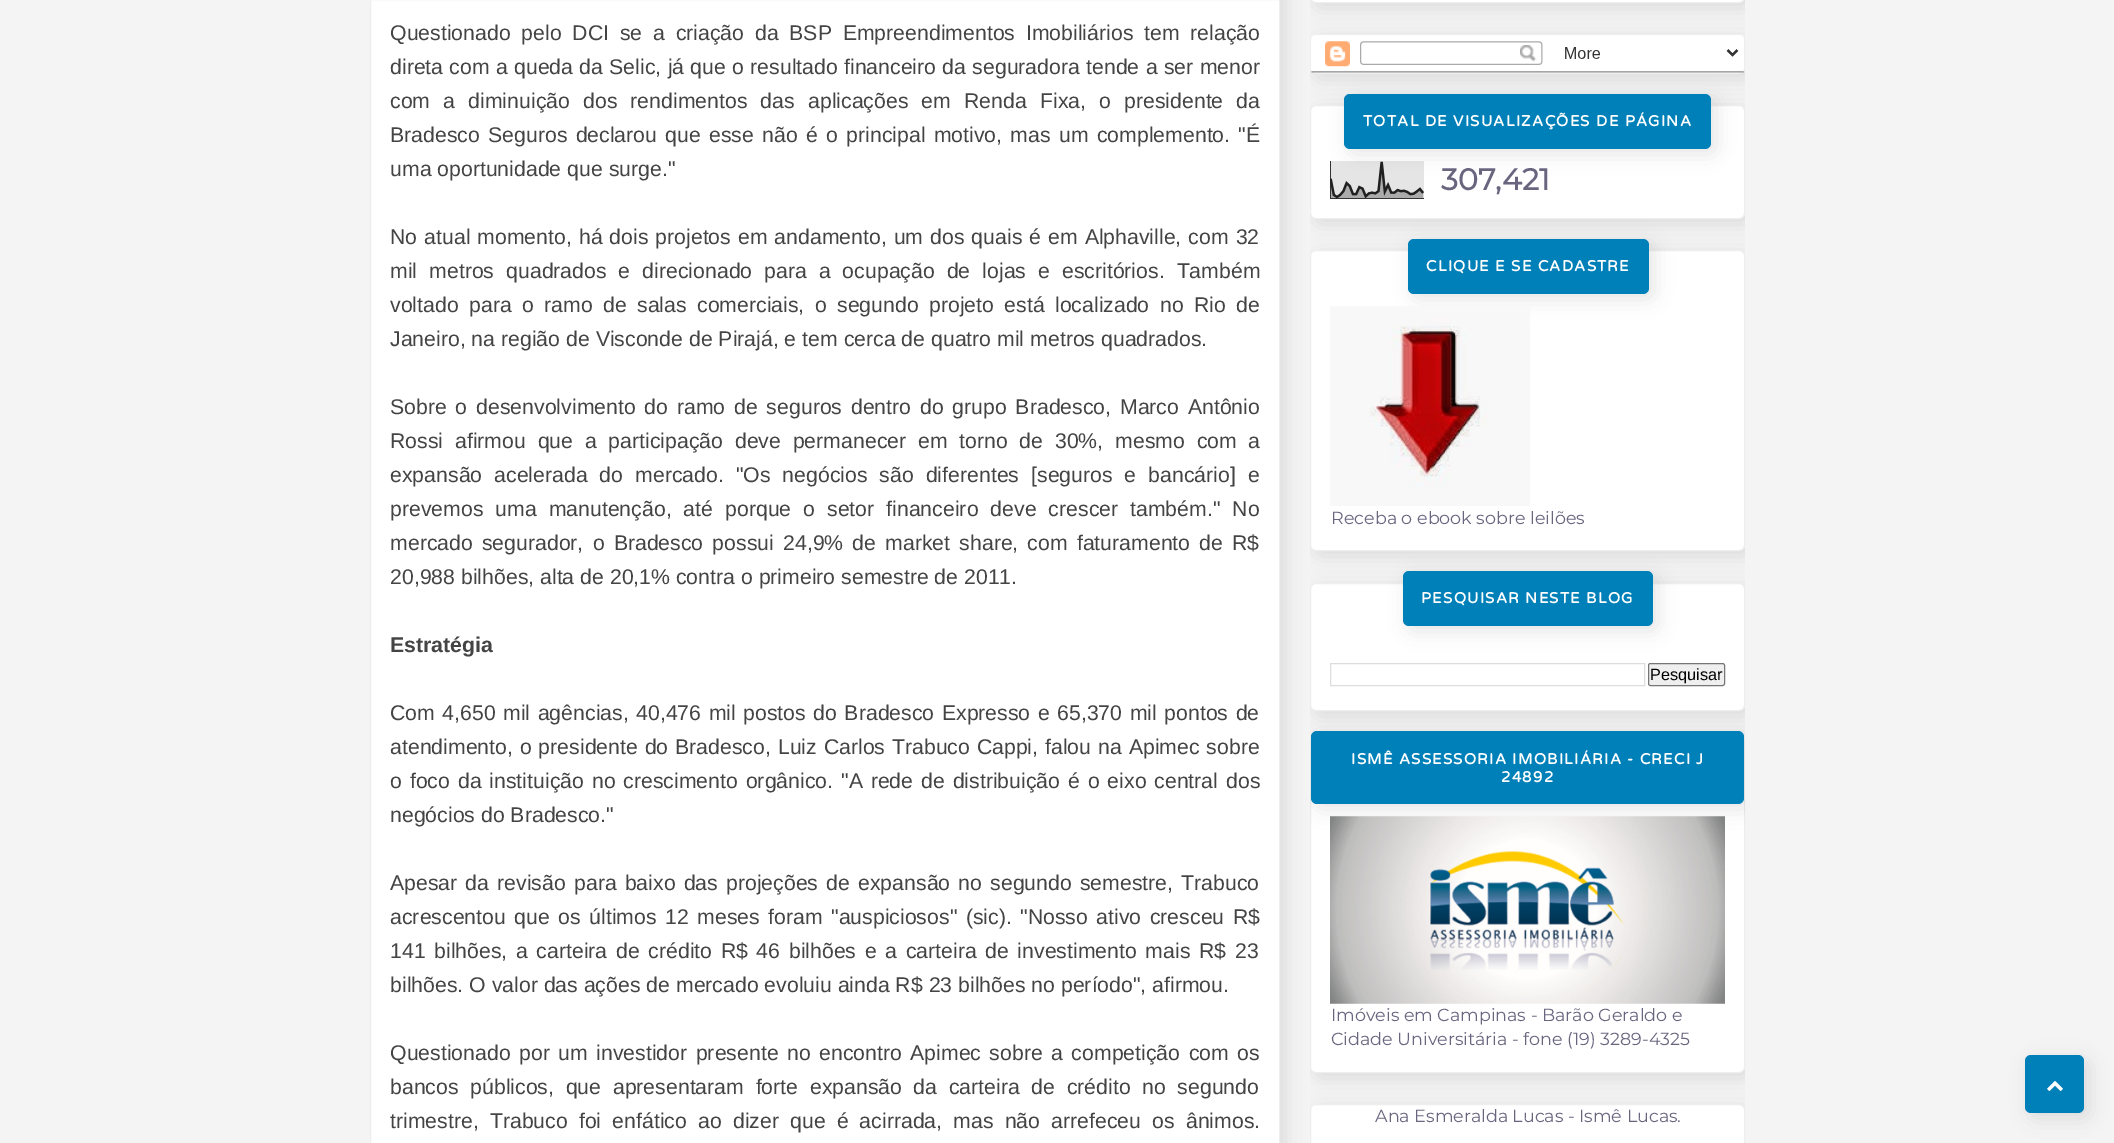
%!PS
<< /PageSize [2114 1143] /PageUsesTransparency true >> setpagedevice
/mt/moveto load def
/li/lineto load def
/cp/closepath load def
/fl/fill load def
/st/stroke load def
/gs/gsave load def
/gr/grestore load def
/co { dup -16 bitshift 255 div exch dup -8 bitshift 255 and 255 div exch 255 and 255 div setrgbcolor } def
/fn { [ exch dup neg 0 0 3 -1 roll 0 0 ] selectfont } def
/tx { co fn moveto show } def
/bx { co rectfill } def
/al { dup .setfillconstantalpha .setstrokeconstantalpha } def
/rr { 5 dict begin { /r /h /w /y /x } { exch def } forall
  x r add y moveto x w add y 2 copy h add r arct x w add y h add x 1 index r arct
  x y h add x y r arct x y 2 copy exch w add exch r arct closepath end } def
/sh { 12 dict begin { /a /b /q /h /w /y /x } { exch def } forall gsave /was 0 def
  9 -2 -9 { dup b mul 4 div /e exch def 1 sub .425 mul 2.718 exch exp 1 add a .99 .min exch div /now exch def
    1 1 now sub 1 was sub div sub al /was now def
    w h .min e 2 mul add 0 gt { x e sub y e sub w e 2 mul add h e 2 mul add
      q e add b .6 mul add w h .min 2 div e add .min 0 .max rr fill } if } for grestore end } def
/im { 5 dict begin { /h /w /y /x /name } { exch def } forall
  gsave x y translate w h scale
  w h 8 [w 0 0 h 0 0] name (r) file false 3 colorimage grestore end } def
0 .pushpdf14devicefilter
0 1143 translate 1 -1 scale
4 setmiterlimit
0 0 2114 1143 16#F4F4F4 bx
gs
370 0 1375 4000 rectclip
16#000000 co
375 -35 910 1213 6 9.5 .1 sh
gr
16#FFFFFF co
370.5 -.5 mt 1279.5 -.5 li 1279.5 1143.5 li 370.5 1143.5 li cp gs fl gr
16#EEEEEE co
st
gs
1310 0 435 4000 rectclip
16#000000 co
1315 -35 435 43 6 9.5 .1 sh
gr
16#FFFFFF co
1310.5 -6.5 434 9 5.5 rr gs fl gr
16#EEEEEE co
st
gs
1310 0 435 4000 rectclip
16#000000 co
1315 39 435 40 6 9.5 .1 sh
gr
16#FFFFFF co
1310.5 34.5 434 39 5.5 rr gs fl gr
16#EEEEEE co
st
(media/1.raw) 1311 35 433 38 im
gs
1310 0 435 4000 rectclip
16#000000 co
1315 110 435 114 6 9.5 .1 sh
gr
16#FFFFFF co
1310.5 105.5 434 113 5.5 rr gs fl gr
16#EEEEEE co
st
16#000000 co
1349 99 367 55 6 9.5 .1 sh
16#0080B8 co
1344 94 367 55 6 rr fl
(media/2.raw) 1330 161 94 38 im
gs
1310 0 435 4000 rectclip
16#000000 co
1315 255 435 301 6 9.5 .1 sh
gr
16#FFFFFF co
1310.5 250.5 434 300 5.5 rr gs fl gr
16#EEEEEE co
st
16#000000 co
1413 244 241 55 6 9.5 .1 sh
16#0080B8 co
1408 239 241 55 6 rr fl
(media/3.raw) 1330 306 200 200 im
gs
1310 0 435 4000 rectclip
16#000000 co
1315 588 435 128 6 9.5 .1 sh
gr
16#FFFFFF co
1310.5 583.5 434 127 5.5 rr gs fl gr
16#EEEEEE co
st
16#000000 co
1408 576 250 55 6 9.5 .1 sh
16#0080B8 co
1403 571 250 55 6 rr fl
16#DDDDDD co
1330.5 663.5 314 22 rectstroke
16#EFEFEF co
1648.5 663.5 76 22 2 rr gs fl gr
16#767676 co
st
gs
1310 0 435 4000 rectclip
16#000000 co
1315 748 435 330 6 9.5 .1 sh
gr
16#FFFFFF co
1310.5 743.5 434 329 5.5 rr gs fl gr
16#EEEEEE co
st
gs
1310 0 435 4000 rectclip
16#000000 co
1316 736 433 73 6 9.5 .1 sh
gr
16#0080B8 co
1311 731 433 73 6 rr fl
(media/4.raw) 1330 816 395 188 im
gs
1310 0 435 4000 rectclip
16#000000 co
1315 1109 435 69 6 9.5 .1 sh
gr
16#FFFFFF co
1310.5 1104.5 434 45 5.5 rr gs fl gr
16#EEEEEE co
st
16#000000 co
2030 1060 59 58 6 9.5 .1 sh
16#0080B8 co
2025 1055 59 58 6 rr fl
(media/5.raw) 2047 1081 16 10 im
/LiberationSans-Regular 21.25 fn
16#444444 co
390 40 mt 4.9 0 32 (Questionado pelo DCI se a criação da BSP Empreendimentos Imobiliários tem relação) widthshow
390 74 mt .4 0 32 (direta com a queda da Selic, já que o resultado financeiro da seguradora tende a ser menor) widthshow
390 108 mt 7.25 0 32 (com a diminuição dos rendimentos das aplicações em Renda Fixa, o presidente da) widthshow
390 142 mt 2.4 0 32 (Bradesco Seguros declarou que esse não é o principal motivo, mas um complemento. "É) widthshow
(uma oportunidade que surge.") 390 176 /LiberationSans-Regular 21.25 16#444444 tx
390 244 mt 1.1 0 32 (No atual momento, há dois projetos em andamento, um dos quais é em Alphaville, com 32) widthshow
390 278 mt 6.1 0 32 (mil metros quadrados e direcionado para a ocupação de lojas e escritórios. Também) widthshow
390 312 mt 4.5 0 32 (voltado para o ramo de salas comerciais, o segundo projeto está localizado no Rio de) widthshow
(Janeiro, na região de Visconde de Pirajá, e tem cerca de quatro mil metros quadrados.) 390 346 /LiberationSans-Regular 21.25 16#444444 tx
390 414 mt 2.9 0 32 (Sobre o desenvolvimento do ramo de seguros dentro do grupo Bradesco, Marco Antônio) widthshow
390 448 mt 5.9 0 32 (Rossi afirmou que a participação deve permanecer em torno de 30%, mesmo com a) widthshow
390 482 mt 6.1 0 32 (expansão acelerada do mercado. "Os negócios são diferentes [seguros e bancário] e) widthshow
390 516 mt 6.1 0 32 (prevemos uma manutenção, até porque o setor financeiro deve crescer também." No) widthshow
390 550 mt 3.25 0 32 (mercado segurador, o Bradesco possui 24,9% de market share, com faturamento de R$) widthshow
(20,988 bilhões, alta de 20,1% contra o primeiro semestre de 2011.) 390 584 /LiberationSans-Regular 21.25 16#444444 tx
(Estratégia) 390 652 /LiberationSans-Bold 21.25 16#444444 tx
/LiberationSans-Regular 21.25 fn
390 720 mt 1.6 0 32 (Com 4,650 mil agências, 40,476 mil postos do Bradesco Expresso e 65,370 mil pontos de) widthshow
390 754 mt 1 0 32 (atendimento, o presidente do Bradesco, Luiz Carlos Trabuco Cappi, falou na Apimec sobre) widthshow
390 788 mt 2 0 32 (o foco da instituição no crescimento orgânico. "A rede de distribuição é o eixo central dos) widthshow
(negócios do Bradesco.") 390 822 /LiberationSans-Regular 21.25 16#444444 tx
390 890 mt 2.25 0 32 (Apesar da revisão para baixo das projeções de expansão no segundo semestre, Trabuco) widthshow
390 924 mt 2.6 0 32 (acrescentou que os últimos 12 meses foram "auspiciosos" \(sic\). "Nosso ativo cresceu R$) widthshow
390 958 mt 2.75 0 32 (141 bilhões, a carteira de crédito R$ 46 bilhões e a carteira de investimento mais R$ 23) widthshow
(bilhões. O valor das ações de mercado evoluiu ainda R$ 23 bilhões no período", afirmou.) 390 992 /LiberationSans-Regular 21.25 16#444444 tx
390 1060 mt 2.6 0 32 (Questionado por um investidor presente no encontro Apimec sobre a competição com os) widthshow
390 1094 mt 5.75 0 32 (bancos públicos, que apresentaram forte expansão da carteira de crédito no segundo) widthshow
390 1128 mt 5.25 0 32 (trimestre, Trabuco foi enfático ao dizer que é acirrada, mas não arrefeceu os ânimos.) widthshow
/VarelaRound-Bold 15 fn
16#FFFFFF co
1363 126 mt 1.25 0 (TOTAL DE VISUALIZAÇÕES DE PÁGINA) ashow
(307,421) 1441 190 /Montserrat-Bold 30 16#69657F tx
/VarelaRound-Bold 15 fn
16#FFFFFF co
1426 271 mt 1.25 0 (CLIQUE E SE CADASTRE) ashow
(Receba o ebook sobre leilões) 1331 524 /Montserrat-Thin 17.5 16#69657F tx
/VarelaRound-Bold 15 fn
16#FFFFFF co
1421 603 mt 1.25 0 (PESQUISAR NESTE BLOG) ashow
(Pesquisar) 1650 680 /LiberationSans-Regular 16.25 16#000000 tx
/VarelaRound-Bold 15 fn
16#FFFFFF co
1351 764 mt 1.25 0 (ISMÊ ASSESSORIA IMOBILIÁRIA - CRECI J) ashow
1501 782 mt 1.25 0 (24892) ashow
(Imóveis em Campinas - Barão Geraldo e) 1331 1021 /Montserrat-Thin 17.5 16#69657F tx
(Cidade Universitária - fone \(19\) 3289-4325) 1331 1045 /Montserrat-Thin 17.5 16#69657F tx
(Ana Esmeralda Lucas - Ismê Lucas.) 1375 1122 /Montserrat-Thin 17.5 16#69657F tx
.poppdf14devicefilter showpage
